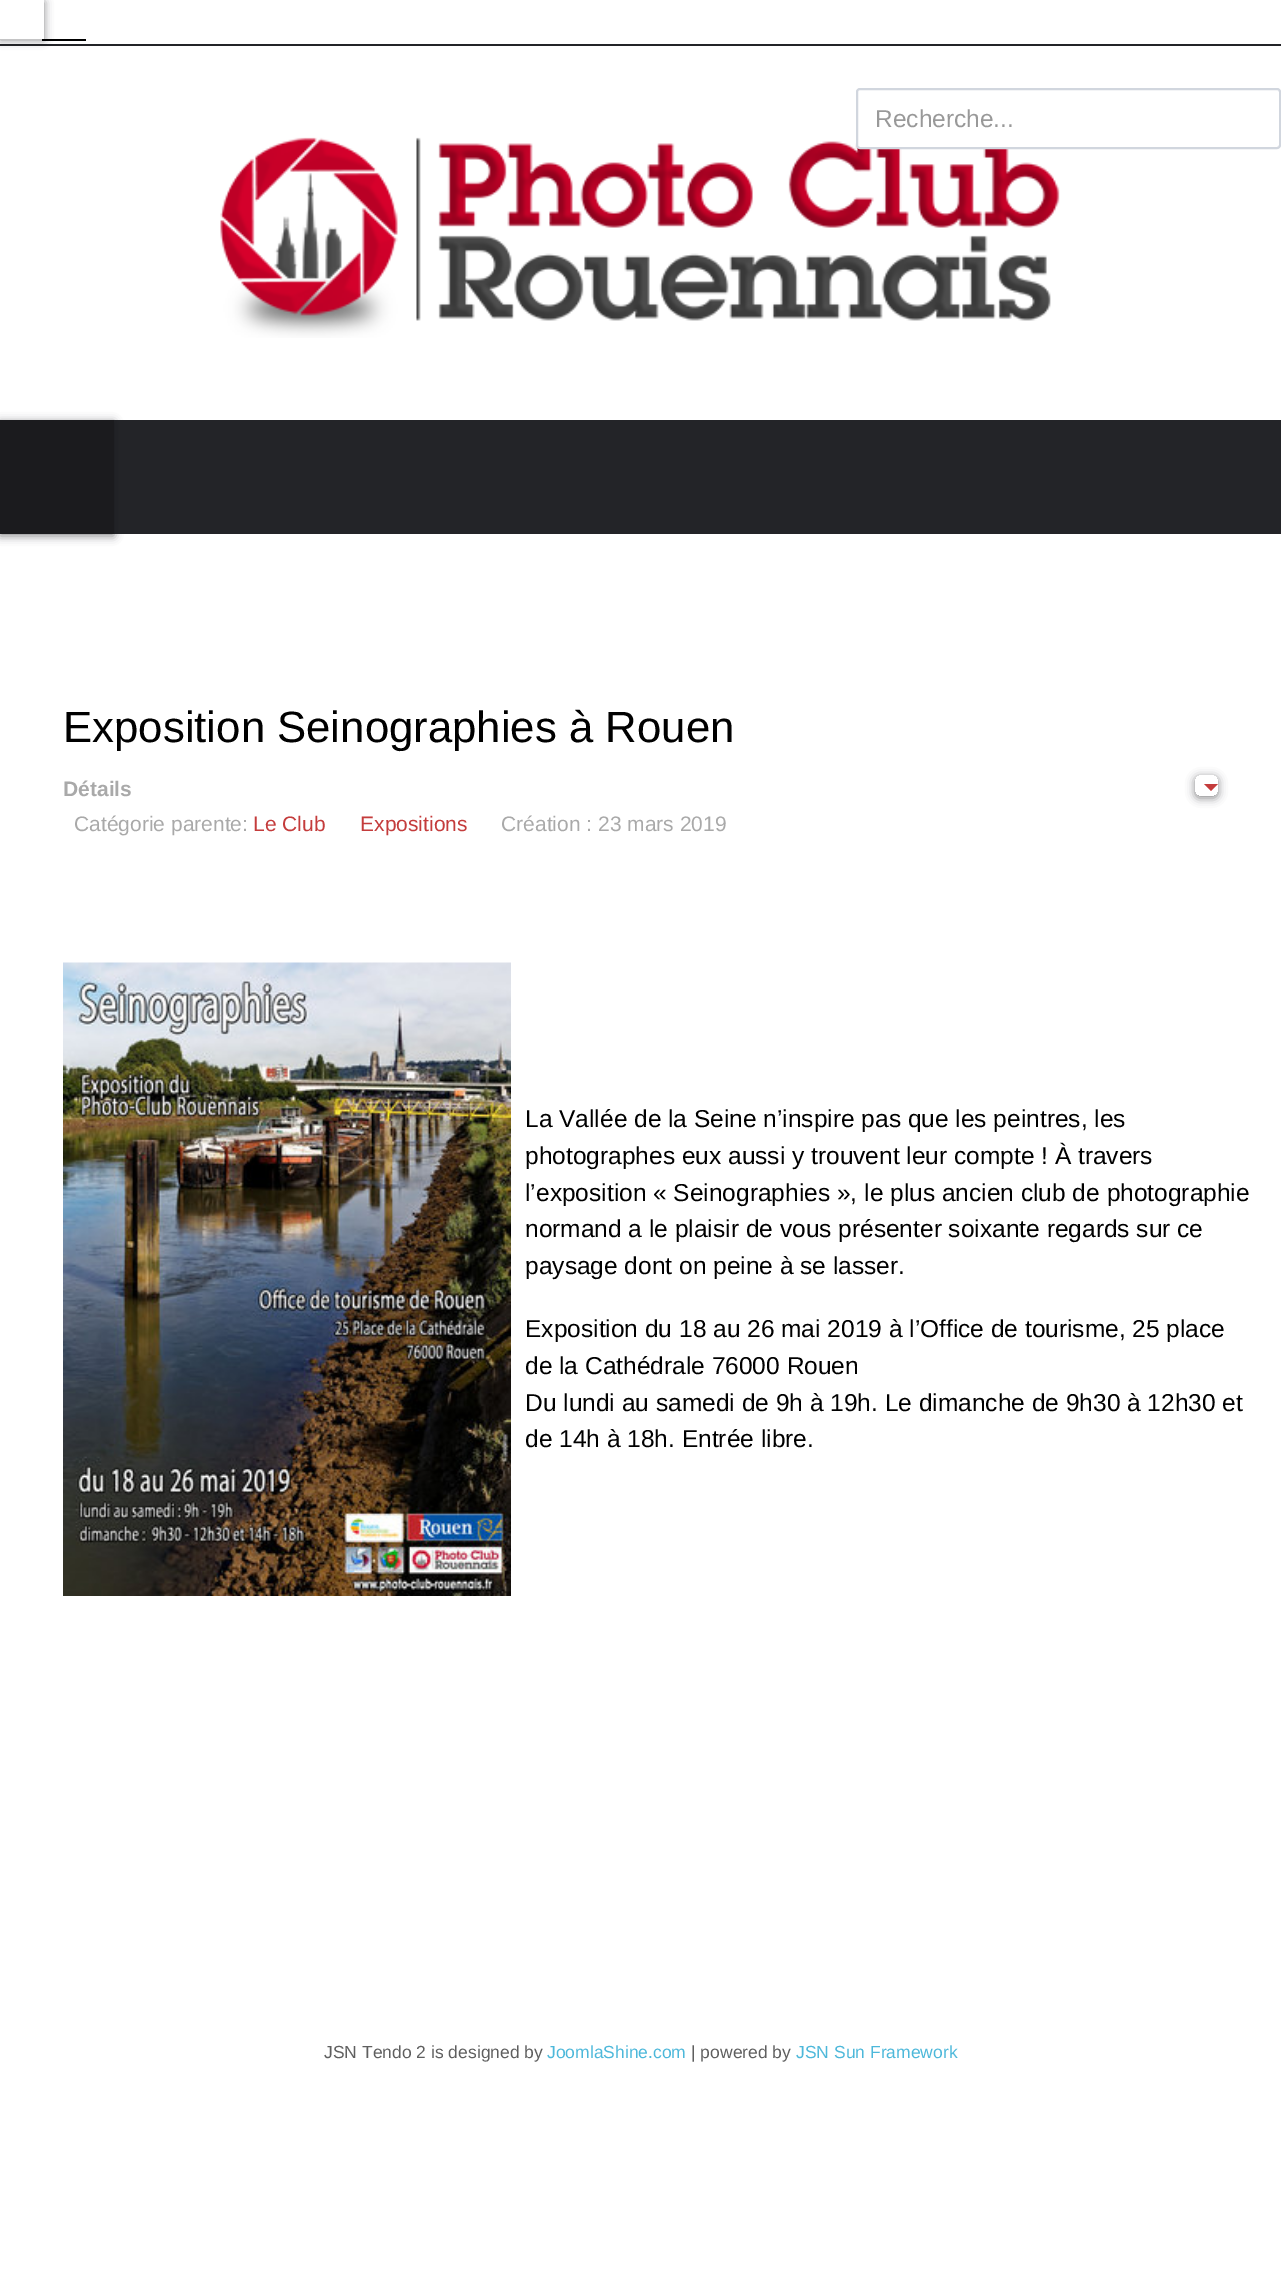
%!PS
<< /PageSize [1281 2289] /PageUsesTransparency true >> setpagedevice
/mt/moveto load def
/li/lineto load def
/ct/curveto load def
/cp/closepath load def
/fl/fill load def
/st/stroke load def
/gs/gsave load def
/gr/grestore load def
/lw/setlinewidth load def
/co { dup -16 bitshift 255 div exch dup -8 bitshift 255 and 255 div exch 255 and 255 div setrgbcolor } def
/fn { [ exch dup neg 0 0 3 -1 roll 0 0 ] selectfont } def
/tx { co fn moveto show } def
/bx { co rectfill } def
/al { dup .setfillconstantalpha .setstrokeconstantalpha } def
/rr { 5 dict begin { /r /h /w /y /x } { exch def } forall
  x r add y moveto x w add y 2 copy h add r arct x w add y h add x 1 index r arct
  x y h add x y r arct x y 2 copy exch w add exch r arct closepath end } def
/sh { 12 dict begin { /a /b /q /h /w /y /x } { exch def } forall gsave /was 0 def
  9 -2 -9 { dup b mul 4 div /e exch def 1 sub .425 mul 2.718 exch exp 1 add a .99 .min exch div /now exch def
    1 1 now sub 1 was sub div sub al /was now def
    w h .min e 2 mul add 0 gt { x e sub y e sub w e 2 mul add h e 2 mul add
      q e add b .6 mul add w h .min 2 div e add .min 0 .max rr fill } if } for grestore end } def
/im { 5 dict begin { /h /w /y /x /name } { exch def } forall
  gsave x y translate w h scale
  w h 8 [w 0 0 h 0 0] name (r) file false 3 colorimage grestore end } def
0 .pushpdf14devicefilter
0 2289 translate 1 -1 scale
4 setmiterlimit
0 0 1281 2289 16#FFFFFF bx
0 44 1281 2 16#232428 bx
gs
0 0 mt 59 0 li 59 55 li 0 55 li cp 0 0 mt 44 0 li 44 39 li 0 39 li cp eoclip newpath
16#141517 co
0 2 44 38 0 4.5 .5 sh
gr
42 39 44 2 16#000000 bx
(media/1.raw) 220 137 840 201 im
16#FFFFFF co
857 89 423 59 3 rr gs fl gr
16#D1D6DE co
2 lw
st
114 420 1167 114 16#232428 bx
16#141517 co
0 422 114 114 0 4.5 .5 sh
0 420 114 114 16#1B1B1E bx
gs
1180 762 mt 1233 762 li 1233 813 li 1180 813 li cp 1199 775 mt 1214 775 li 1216 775 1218 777 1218 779 ct 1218 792 li 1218 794 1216 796 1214 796 ct 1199 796 li 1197 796 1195 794 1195 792 ct 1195 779 li 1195 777 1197 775 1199 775 ct cp eoclip newpath
16#141517 co
1195 777 23 21 4 4.5 .5 sh
gr
16#C43C3C co
1204 784 mt 1218 784 li 1211 791 li cp fl
(media/2.raw) 63 962 448 634 im
(Recherche...) 875 127 /LiberationSans-Regular 24.5 16#999999 tx
(Exposition Seinographies à Rouen) 63 742 /LiberationSans-Regular 43.75 16#000000 tx
(Détails) 63 796 /LiberationSans-Bold 21 16#A9A9A9 tx
(Catégorie parente:) 74 831 /LiberationSans-Regular 21 16#A9A9A9 tx
(Le Club) 253 831 /LiberationSans-Regular 21 16#C43C3C tx
(Expositions) 360 831 /LiberationSans-Regular 21 16#C43C3C tx
(Création : 23 mars 2019) 501 831 /LiberationSans-Regular 21 16#A9A9A9 tx
(La Vallée de la Seine n’inspire pas que les peintres, les) 525 1127 /LiberationSans-Regular 24.5 16#000000 tx
(photographes eux aussi y trouvent leur compte ! À travers) 525 1164 /LiberationSans-Regular 24.5 16#000000 tx
(l’exposition « Seinographies », le plus ancien club de photographie) 525 1201 /LiberationSans-Regular 24.5 16#000000 tx
(normand a le plaisir de vous présenter soixante regards sur ce) 525 1237 /LiberationSans-Regular 24.5 16#000000 tx
(paysage dont on peine à se lasser.) 525 1274 /LiberationSans-Regular 24.5 16#000000 tx
(Exposition du 18 au 26 mai 2019 à l’Office de tourisme, 25 place) 525 1337 /LiberationSans-Regular 24.5 16#000000 tx
(de la Cathédrale 76000 Rouen) 525 1374 /LiberationSans-Regular 24.5 16#000000 tx
(Du lundi au samedi de 9h à 19h. Le dimanche de 9h30 à 12h30 et) 525 1411 /LiberationSans-Regular 24.5 16#000000 tx
(de 14h à 18h. Entrée libre.) 525 1447 /LiberationSans-Regular 24.5 16#000000 tx
(JSN Tendo 2 is designed by) 324 2058 /LiberationSans-Regular 17.5 16#5F5F5F tx
(JoomlaShine.com) 547 2058 /LiberationSans-Regular 17.5 16#4DB8DA tx
(| powered by) 691 2058 /LiberationSans-Regular 17.5 16#5F5F5F tx
(JSN Sun Framework) 796 2058 /LiberationSans-Regular 17.5 16#4DB8DA tx
.poppdf14devicefilter showpage
